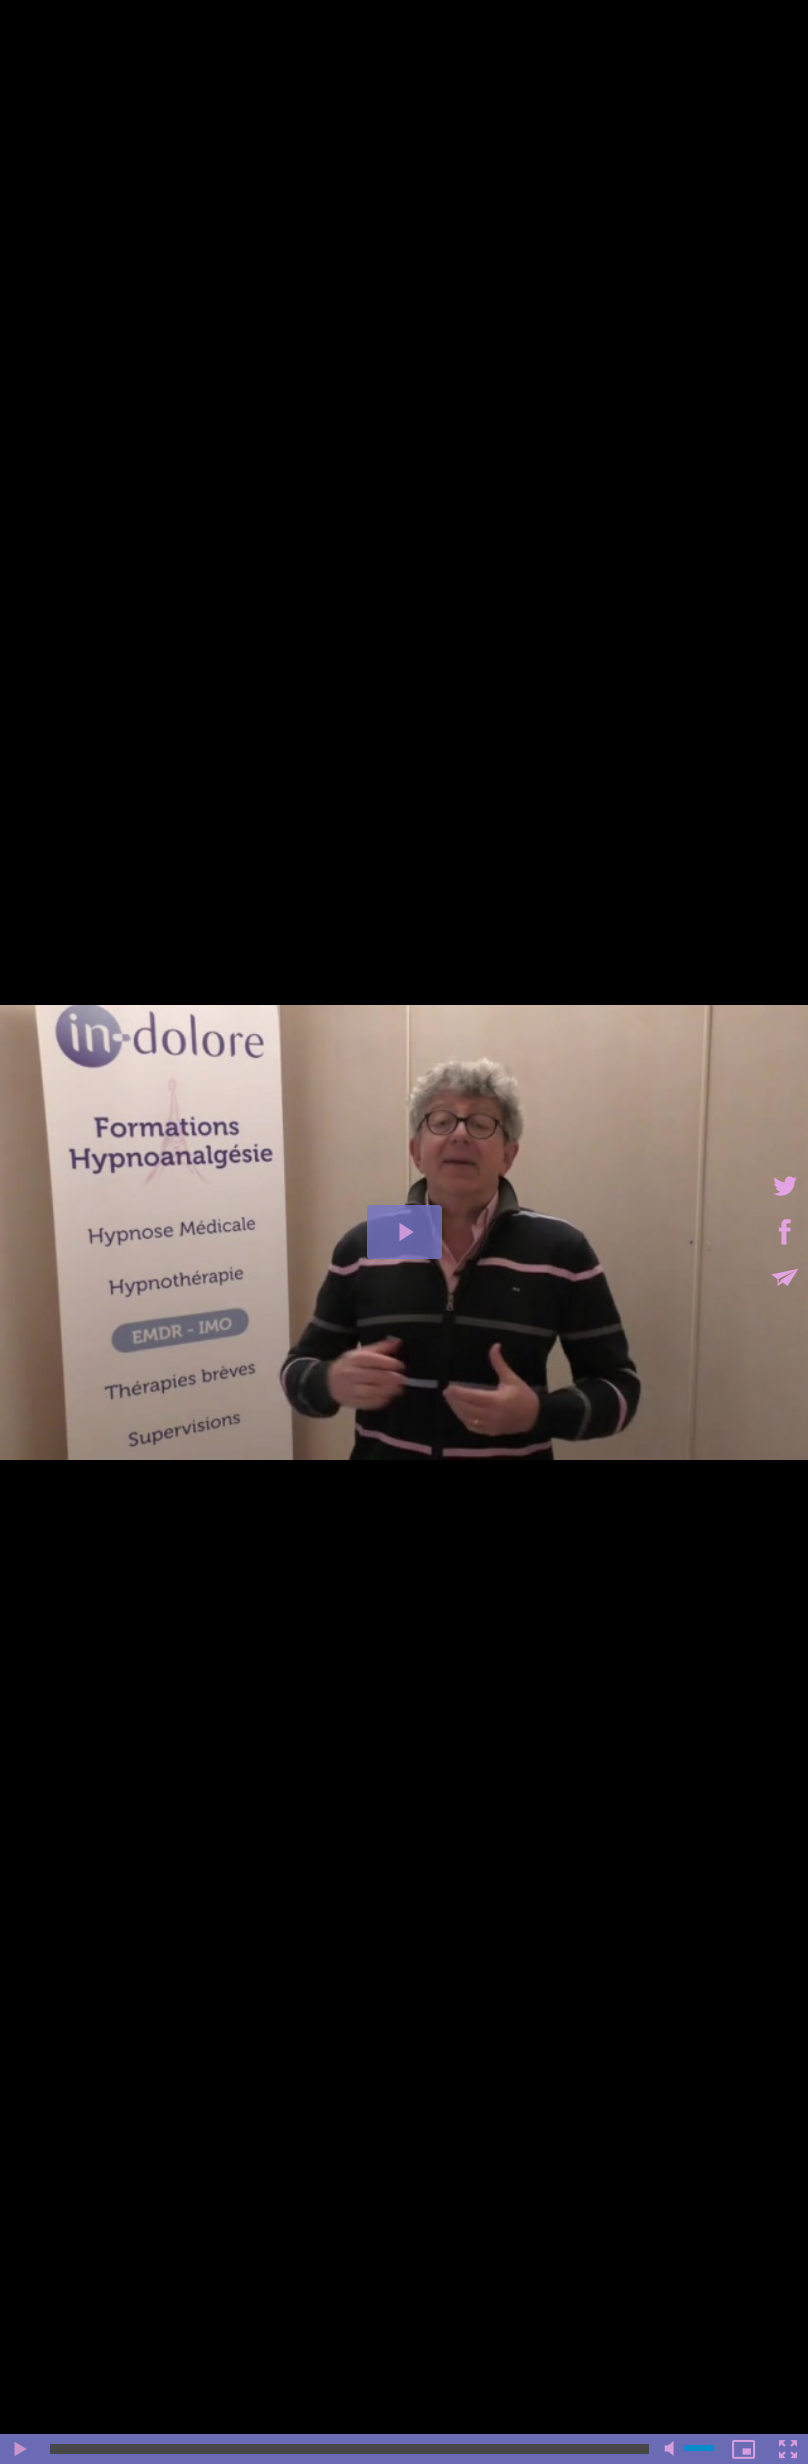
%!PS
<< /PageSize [808 2464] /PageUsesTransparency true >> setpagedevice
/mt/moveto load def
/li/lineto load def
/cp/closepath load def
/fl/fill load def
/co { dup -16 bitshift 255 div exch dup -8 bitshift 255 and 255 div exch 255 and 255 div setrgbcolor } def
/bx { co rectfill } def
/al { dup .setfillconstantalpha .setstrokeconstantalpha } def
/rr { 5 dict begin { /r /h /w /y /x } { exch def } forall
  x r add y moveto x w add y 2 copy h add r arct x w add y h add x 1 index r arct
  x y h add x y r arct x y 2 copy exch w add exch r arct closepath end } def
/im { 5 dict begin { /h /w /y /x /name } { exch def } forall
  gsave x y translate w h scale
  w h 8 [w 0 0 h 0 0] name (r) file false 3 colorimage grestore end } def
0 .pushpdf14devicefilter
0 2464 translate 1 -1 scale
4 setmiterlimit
0 0 808 2464 16#000000 bx
(media/1.raw) 0 1005 808 455 im
0.8 al
16#7676C9 co
367 1205 75 54 4 rr fl
16#E3A4E3 co
399.5 1223 mt 399.5 1241 li 413.5 1232 li cp fl
1 al
(media/2.raw) 773 1176 24 20 im
(media/3.raw) 778 1219 13 26 im
(media/4.raw) 771 1268 28 18 im
0 2434 808 30 16#6A6AB5 bx
16#CC94CC co
14.5 2449 mt 14.5 2442 li 26.5 2449 li 14.5 2456 li cp fl
50 2444 599 10 16#474747 bx
(media/5.raw) 664 2441 10 15 im
683 2445 31 6 16#008DCA bx
(media/6.raw) 732 2439 24 20 im
(media/7.raw) 779 2440 18 19 im
.poppdf14devicefilter showpage
